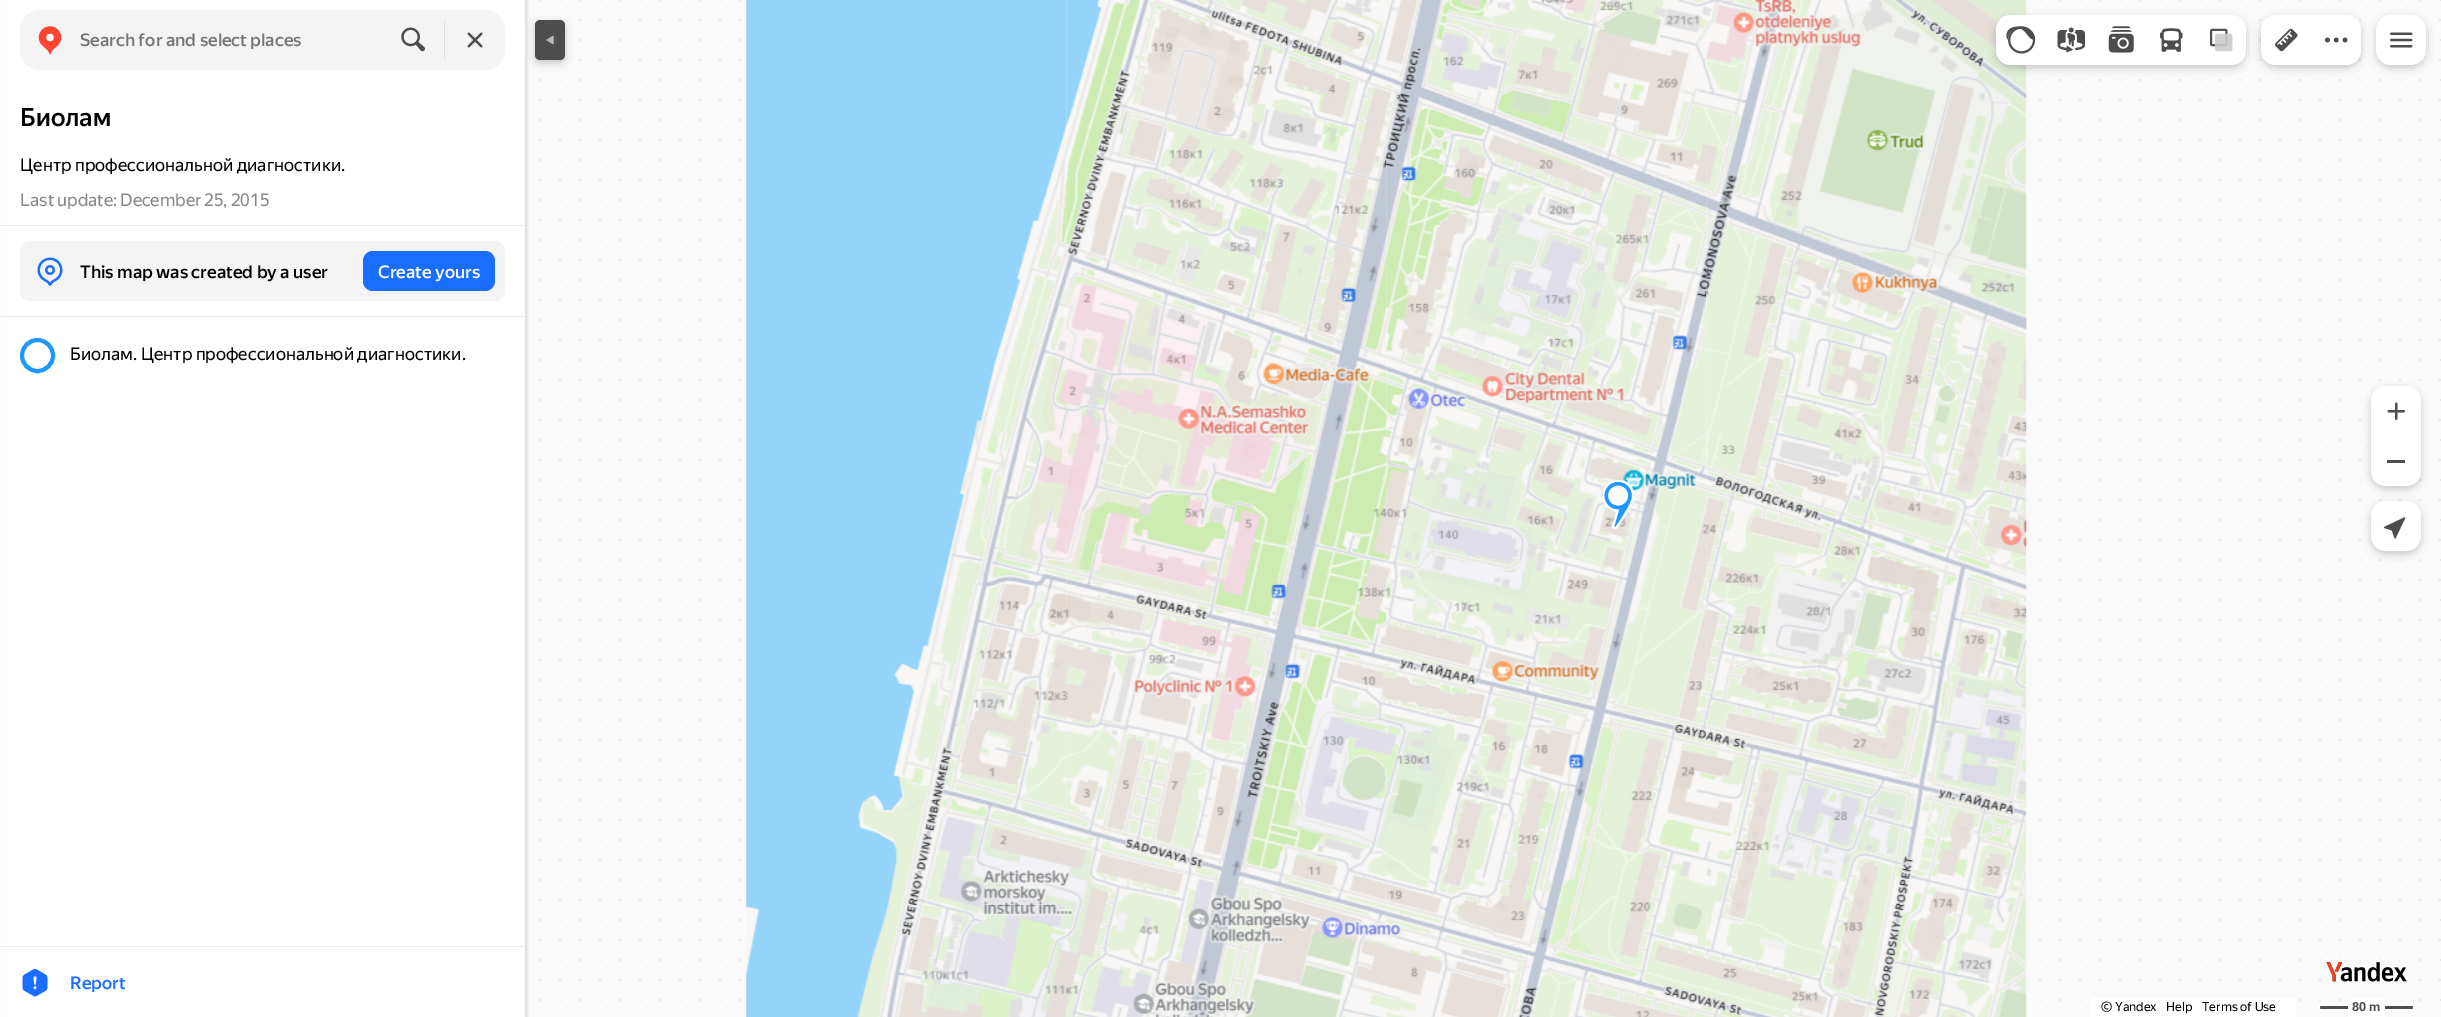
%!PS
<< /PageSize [2441 1017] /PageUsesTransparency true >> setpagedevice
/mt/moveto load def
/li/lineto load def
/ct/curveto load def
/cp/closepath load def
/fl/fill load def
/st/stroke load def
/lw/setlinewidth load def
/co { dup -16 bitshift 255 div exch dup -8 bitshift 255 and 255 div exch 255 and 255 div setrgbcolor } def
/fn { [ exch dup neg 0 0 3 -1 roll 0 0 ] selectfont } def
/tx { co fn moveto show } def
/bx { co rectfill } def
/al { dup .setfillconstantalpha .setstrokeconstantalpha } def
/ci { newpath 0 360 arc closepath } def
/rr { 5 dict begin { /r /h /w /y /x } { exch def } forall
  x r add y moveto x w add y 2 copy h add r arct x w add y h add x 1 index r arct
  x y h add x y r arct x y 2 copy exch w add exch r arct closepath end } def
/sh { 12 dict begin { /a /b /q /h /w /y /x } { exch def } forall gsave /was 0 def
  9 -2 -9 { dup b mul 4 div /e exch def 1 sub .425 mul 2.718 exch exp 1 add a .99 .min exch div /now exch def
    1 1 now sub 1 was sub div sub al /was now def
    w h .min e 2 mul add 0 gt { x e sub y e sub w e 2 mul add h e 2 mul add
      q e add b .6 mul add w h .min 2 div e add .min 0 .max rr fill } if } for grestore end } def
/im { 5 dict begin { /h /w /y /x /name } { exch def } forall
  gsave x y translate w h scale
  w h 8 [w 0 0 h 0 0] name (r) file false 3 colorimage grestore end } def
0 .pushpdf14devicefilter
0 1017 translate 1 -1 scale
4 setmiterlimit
0 0 2441 1017 16#FFFFFF bx
(media/1.raw) 525 0 1916 1017 im
(media/2.raw) 746 0 321 265 im
(media/3.raw) 1066 0 321 265 im
(media/4.raw) 1386 0 321 265 im
(media/5.raw) 1706 0 321 265 im
(media/6.raw) 746 265 321 320 im
(media/8.raw) 1386 265 321 320 im
(media/7.raw) 1066 265 321 320 im
(media/9.raw) 1706 265 321 320 im
(media/10.raw) 746 585 321 320 im
(media/11.raw) 1066 585 321 320 im
(media/12.raw) 1386 585 321 320 im
(media/13.raw) 1706 585 321 320 im
(media/14.raw) 746 905 321 112 im
(media/15.raw) 1066 905 321 112 im
(media/16.raw) 1386 905 321 112 im
(media/17.raw) 1706 905 321 112 im
(media/18.raw) 1603 480 32 50 im
16#000000 co
3 0 525 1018 0 1 .1 sh
535 23 30 40 5 4 .2 sh
2 0 523 1017 16#FFFFFF bx
16#F4F4F4 co
20 10 485 60 20 rr fl
(media/19.raw) 38 26 24 29 im
(media/20.raw) 401 27 24 25 im
444 20 1 40 16#E0E0E0 bx
(media/21.raw) 467 32 16 16 im
16#000000 co
1996 18 250 50 15 4 .2 sh
16#FFFFFF co
2011 15 mt 2046 15 li 2046 65 li 2011 65 li 2002.5 65 1996 58.5 1996 50 ct 1996 30 li 1996 21.5 2002.5 15 2011 15 ct cp fl
(media/22.raw) 2006 26 30 28 im
2046 15 150 50 16#FFFFFF bx
(media/23.raw) 2057 27 28 26 im
2196 15 mt 2231 15 li 2239.5 15 2246 21.5 2246 30 ct 2246 50 li 2246 58.5 2239.5 65 2231 65 ct 2196 65 li cp fl
(media/24.raw) 2210 28 23 24 im
(media/25.raw) 2108 26 26 27 im
(media/26.raw) 2160 28 23 24 im
16#000000 co
2261 18 100 50 15 4 .2 sh
16#FFFFFF co
2276 15 mt 2311 15 li 2311 65 li 2276 65 li 2267.5 65 2261 58.5 2261 50 ct 2261 30 li 2261 21.5 2267.5 15 2276 15 ct cp fl
(media/27.raw) 2275 28 23 24 im
2311 15 mt 2346 15 li 2354.5 15 2361 21.5 2361 30 ct 2361 50 li 2361 58.5 2354.5 65 2346 65 ct 2311 65 li cp fl
(media/28.raw) 2325 37 23 6 im
16#000000 co
2376 18 50 50 15 4 .2 sh
16#FFFFFF co
2376 15 50 50 15 rr fl
(media/29.raw) 2390 32 23 16 im
16#000000 co
2371 389 50 100 15 4 .2 sh
16#FFFFFF co
2386 386 mt 2406 386 li 2414.5 386 2421 392.5 2421 401 ct 2421 436 li 2371 436 li 2371 401 li 2371 392.5 2377.5 386 2386 386 ct cp fl
(media/30.raw) 2387 402 18 18 im
2371 436 mt 2421 436 li 2421 471 li 2421 479.5 2414.5 486 2406 486 ct 2386 486 li 2377.5 486 2371 479.5 2371 471 ct cp fl
2387 460 18 3 16#4D4D4D bx
16#000000 co
2371 504 50 50 15 4 .2 sh
16#FFFFFF co
2371 501 50 50 15 rr fl
(media/31.raw) 2383 517 23 22 im
16#4D4D4D co
535 20 30 40 5 rr fl
(media/32.raw) 546 35 8 10 im
0 225 525 1 16#EBEBEB bx
0 316 525 1 16#EBEBEB bx
16#F4F4F4 co
20 241 485 60 10 rr fl
(media/33.raw) 37 257 26 29 im
16#196DFF co
363 251 132 40 10 rr fl
16#1E98FF co
4 lw
37.5 355.5 15.5 ci st
0 946 525 1 16#EBEBEB bx
(media/34.raw) 22 968 26 29 im
(media/35.raw) 2326 959 81 23 im
16#FFFFFF co
2095 998 mt 2291 998 li 2294 998 2296 1000 2296 1003 ct 2296 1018 li 2090 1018 li 2090 1003 li 2090 1000 2092 998 2095 998 ct cp fl
16#FDFDFD co
2318 1004 97 7 3.5 rr fl
16#4D4D4D co
2320 1006 93 3 1.5 rr fl
16#FFFFFF co
2353 998 mt 2380 998 li 2383 998 2385 1000 2385 1003 ct 2385 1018 li 2348 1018 li 2348 1003 li 2348 1000 2350 998 2353 998 ct cp fl
(Search for and select places) 80 46 /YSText-Medium 17.5 16#757575 tx
(Биолам) 20 126 /YSText-Medium 25 16#000000 tx
(Центр профессиональной диагностики.) 20 171 /YSText-Regular 17.5 16#000000 tx
16#878787 co
20 206 mt -.5 0 32 (Last update: December 25, 2015) widthshow
(This map was created by a user) 80 278 /YSText-Medium 17.5 16#000000 tx
(Create yours) 378 278 /YSText-Medium 17.5 16#FFFFFF tx
(Биолам. Центр профессиональной диагностики.) 70 360 /YSText-Regular 17.5 16#000000 tx
(Report) 70 989 /YSText-Medium 17.5 16#196DFF tx
(© Yandex) 2101 1011 /YSText-Regular 12.5 16#000000 tx
(Help) 2166 1011 /YSText-Regular 12.5 16#000000 tx
(Terms of Use) 2202 1011 /YSText-Regular 12.5 16#000000 tx
(80 m) 2352 1011 /YSText-Bold 12.5 16#4D4D4D tx
.poppdf14devicefilter showpage
